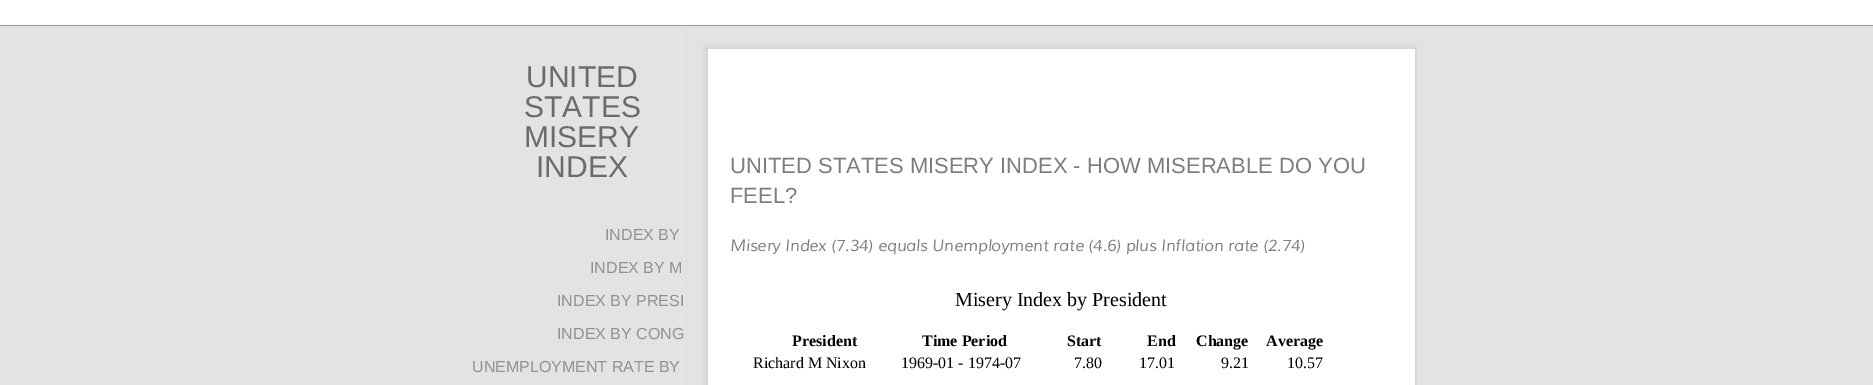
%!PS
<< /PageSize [1873 385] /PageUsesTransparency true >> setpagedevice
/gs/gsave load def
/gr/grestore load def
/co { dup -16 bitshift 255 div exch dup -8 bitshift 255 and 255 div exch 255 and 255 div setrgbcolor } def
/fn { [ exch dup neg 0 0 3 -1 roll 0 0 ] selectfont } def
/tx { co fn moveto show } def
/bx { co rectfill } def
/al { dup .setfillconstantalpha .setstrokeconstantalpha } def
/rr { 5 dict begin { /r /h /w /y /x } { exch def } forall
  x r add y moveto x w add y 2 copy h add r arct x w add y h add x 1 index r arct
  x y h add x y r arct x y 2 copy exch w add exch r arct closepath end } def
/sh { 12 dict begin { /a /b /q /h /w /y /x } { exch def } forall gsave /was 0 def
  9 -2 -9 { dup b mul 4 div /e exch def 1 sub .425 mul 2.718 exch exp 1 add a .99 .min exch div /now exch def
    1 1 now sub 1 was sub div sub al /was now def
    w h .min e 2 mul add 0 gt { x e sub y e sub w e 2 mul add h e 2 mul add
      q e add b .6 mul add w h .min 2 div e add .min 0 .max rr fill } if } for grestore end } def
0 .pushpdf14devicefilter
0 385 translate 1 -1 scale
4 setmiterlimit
0 0 1873 385 16#FFFFFF bx
16#A3A3A3 co
3 28 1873 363 0 2 1 sh
0 26 1873 359 16#E3E3E3 bx
0 25 1873 1 16#9A9A9A bx
686 26 1 359 16#DFDFDF bx
gs
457 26 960 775 rectclip
16#D3D3D3 co
705 46 713 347 0 2.5 1 sh
gr
708 49 707 336 16#FFFFFF bx
(UNITED) 526 87 /LiberationSans-Regular 30 16#6B6B6B tx
(STATES) 524 117 /LiberationSans-Regular 30 16#6B6B6B tx
(MISERY) 524 147 /LiberationSans-Regular 30 16#6B6B6B tx
(INDEX) 536 177 /LiberationSans-Regular 30 16#6B6B6B tx
(INDEX BY) 605 240 /LiberationSans-Regular 16 16#919191 tx
(INDEX BY M) 590 273 /LiberationSans-Regular 16 16#919191 tx
(INDEX BY PRESI) 557 306 /LiberationSans-Regular 16 16#919191 tx
(INDEX BY CONG) 557 339 /LiberationSans-Regular 16 16#919191 tx
(UNEMPLOYMENT RATE BY) 472 372 /LiberationSans-Regular 16 16#919191 tx
(UNITED STATES MISERY INDEX - HOW MISERABLE DO YOU) 730 173 /LiberationSans-Regular 22 16#7D7D7D tx
(FEEL?) 730 203 /LiberationSans-Regular 22 16#7D7D7D tx
(Misery Index \(7.34\) equals Unemployment rate \(4.6\) plus Inflation rate \(2.74\)) 730 251 /Muli-Italic 16 16#7D7D7D tx
(Misery Index by President) 955 306 /LiberationSerif-Regular 20 16#000000 tx
(President) 792 346 /LiberationSerif-Bold 16 16#000000 tx
(Time Period) 922 346 /LiberationSerif-Bold 16 16#000000 tx
(Start) 1067 346 /LiberationSerif-Bold 16 16#000000 tx
(End) 1147 346 /LiberationSerif-Bold 16 16#000000 tx
(Change) 1196 346 /LiberationSerif-Bold 16 16#000000 tx
(Average) 1266 346 /LiberationSerif-Bold 16 16#000000 tx
(Richard M Nixon) 753 368 /LiberationSerif-Regular 16 16#000000 tx
(1969-01 - 1974-07) 901 368 /LiberationSerif-Regular 16 16#000000 tx
(7.80) 1074 368 /LiberationSerif-Regular 16 16#000000 tx
(17.01) 1139 368 /LiberationSerif-Regular 16 16#000000 tx
(9.21) 1221 368 /LiberationSerif-Regular 16 16#000000 tx
(10.57) 1287 368 /LiberationSerif-Regular 16 16#000000 tx
.poppdf14devicefilter showpage
